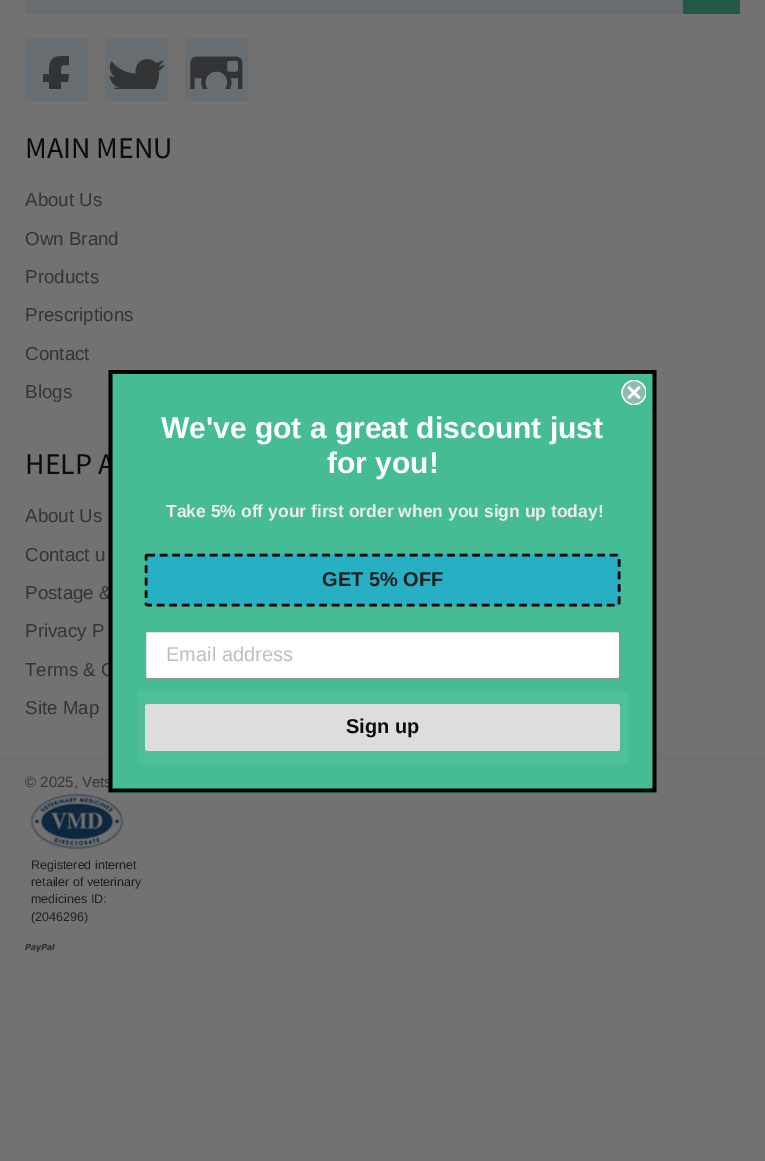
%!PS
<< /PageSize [765 1161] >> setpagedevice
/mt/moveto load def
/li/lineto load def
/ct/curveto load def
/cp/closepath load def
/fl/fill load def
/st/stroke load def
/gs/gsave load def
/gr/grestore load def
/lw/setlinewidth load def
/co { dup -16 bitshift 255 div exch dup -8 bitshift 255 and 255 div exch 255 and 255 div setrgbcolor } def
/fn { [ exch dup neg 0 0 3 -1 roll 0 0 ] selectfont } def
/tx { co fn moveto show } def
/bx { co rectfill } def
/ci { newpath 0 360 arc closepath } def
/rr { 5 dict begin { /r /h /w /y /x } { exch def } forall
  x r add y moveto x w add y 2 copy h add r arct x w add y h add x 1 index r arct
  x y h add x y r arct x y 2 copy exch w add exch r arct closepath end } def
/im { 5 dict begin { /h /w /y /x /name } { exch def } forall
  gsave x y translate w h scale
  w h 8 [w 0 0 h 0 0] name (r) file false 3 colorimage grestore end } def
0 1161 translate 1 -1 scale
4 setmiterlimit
0 0 765 1161 16#727272 bx
25 0 658 14 16#686D71 bx
683 0 57 14 16#235748 bx
25 39 63 62 16#686D71 bx
gs
25 51 63 38 rectclip
16#313334 co
61 74 mt 61 65 60 65 69 65 ct 69 56 li 53 56 49 56 49 74 ct 43 74 li 43 82 li 49 82 li 49 109 li 61 109 li 61 82 li 68 82 li 69 74 li cp fl
gr
105 39 63 62 16#686D71 bx
(media/1.raw) 109 59 56 30 im
185 39 63 62 16#686D71 bx
(media/2.raw) 190 56 53 33 im
0 759 765 1 16#6D6D6D bx
(media/3.raw) 27 792 98 58 im
(media/4.raw) 25 943 30 10 im
(MAIN MENU) 25 158 /SourceSansPro-Regular 30 16#0C0C0C tx
(About Us) 25 206 /LiberationSans-Regular 18.75 16#353535 tx
(Own Brand) 25 245 /LiberationSans-Regular 18.75 16#353535 tx
(Products) 25 283 /LiberationSans-Regular 18.75 16#353535 tx
(Prescriptions) 25 321 /LiberationSans-Regular 18.75 16#353535 tx
(Contact) 25 360 /LiberationSans-Regular 18.75 16#353535 tx
(Blogs) 25 398 /LiberationSans-Regular 18.75 16#353535 tx
(HELP A) 25 474 /SourceSansPro-Regular 30 16#0C0C0C tx
(About Us) 25 522 /LiberationSans-Regular 18.75 16#353535 tx
(Contact u) 25 561 /LiberationSans-Regular 18.75 16#353535 tx
(Postage &) 25 599 /LiberationSans-Regular 18.75 16#353535 tx
(Privacy P) 25 637 /LiberationSans-Regular 18.75 16#353535 tx
(Terms & C) 25 676 /LiberationSans-Regular 18.75 16#353535 tx
(Site Map) 25 714 /LiberationSans-Regular 18.75 16#353535 tx
(© 2025, Vets) 25 787 /LiberationSans-Regular 15 16#353535 tx
(Registered internet) 31 869 /LiberationSans-Regular 12.5 16#202020 tx
(retailer of veterinary) 31 886 /LiberationSans-Regular 12.5 16#202020 tx
(medicines ID:) 31 903 /LiberationSans-Regular 12.5 16#202020 tx
(\(2046296\)) 31 921 /LiberationSans-Regular 12.5 16#202020 tx
16#45BC93 co
109 370 547 423 1 rr fl
16#000000 co
3.8 lw
110.5 372 mt 654.5 372 li 654.5 790.5 li 110.5 790.5 li cp st
16#8DBBB2 co
634 392.5 12 ci fl
gs
621 380 25 25 rectclip
16#FFFFFF co
1.2 lw
634 392.5 12 ci st
gr
16#FFFFFF co
2.5 lw
1 setlinecap
1 setlinejoin
629 387.5 mt 639 397.5 li 629 397.5 mt 639 387.5 li cp st
(We've got a great discount just) 161 438 /LiberationSans-Bold 30 16#FFFFFF tx
(for you!) 327 473 /LiberationSans-Bold 30 16#FFFFFF tx
(Take 5% off your first order when you sign up today!) 166 517 /LiberationSans-Bold 17.5 16#EEEEEE tx
16#27B0C3 co
145 554 475 52 2.5 rr fl
16#000000 co
0 setlinecap
0 setlinejoin
[7.5 5] 0 setdash
147.5 555 mt 617.5 555 li 618 555 619 555.5 619 556 ct 619 604 li 619 604.5 618 605 617.5 605 ct 147.5 605 li 147 605 146 604.5 146 604 ct 146 556 li 146 555.5 147 555 147.5 555 ct cp st
(GET 5% OFF) 322 586 /LiberationSans-Bold 20 16#202020 tx
16#FFFFFF co
145.5 631.5 474 47 2 rr gs fl gr
16#949596 co
1 lw
[] 0 setdash
st
(Email address) 166 661 /LiberationSans-Regular 20 16#BFBFC0 tx
138 691 490 73 16#4EBF98 bx
16#DDDDDD co
145 704 475 47 2.5 rr fl
(Sign up) 346 733 /LiberationSans-Bold 20 16#0C0C0C tx
showpage
